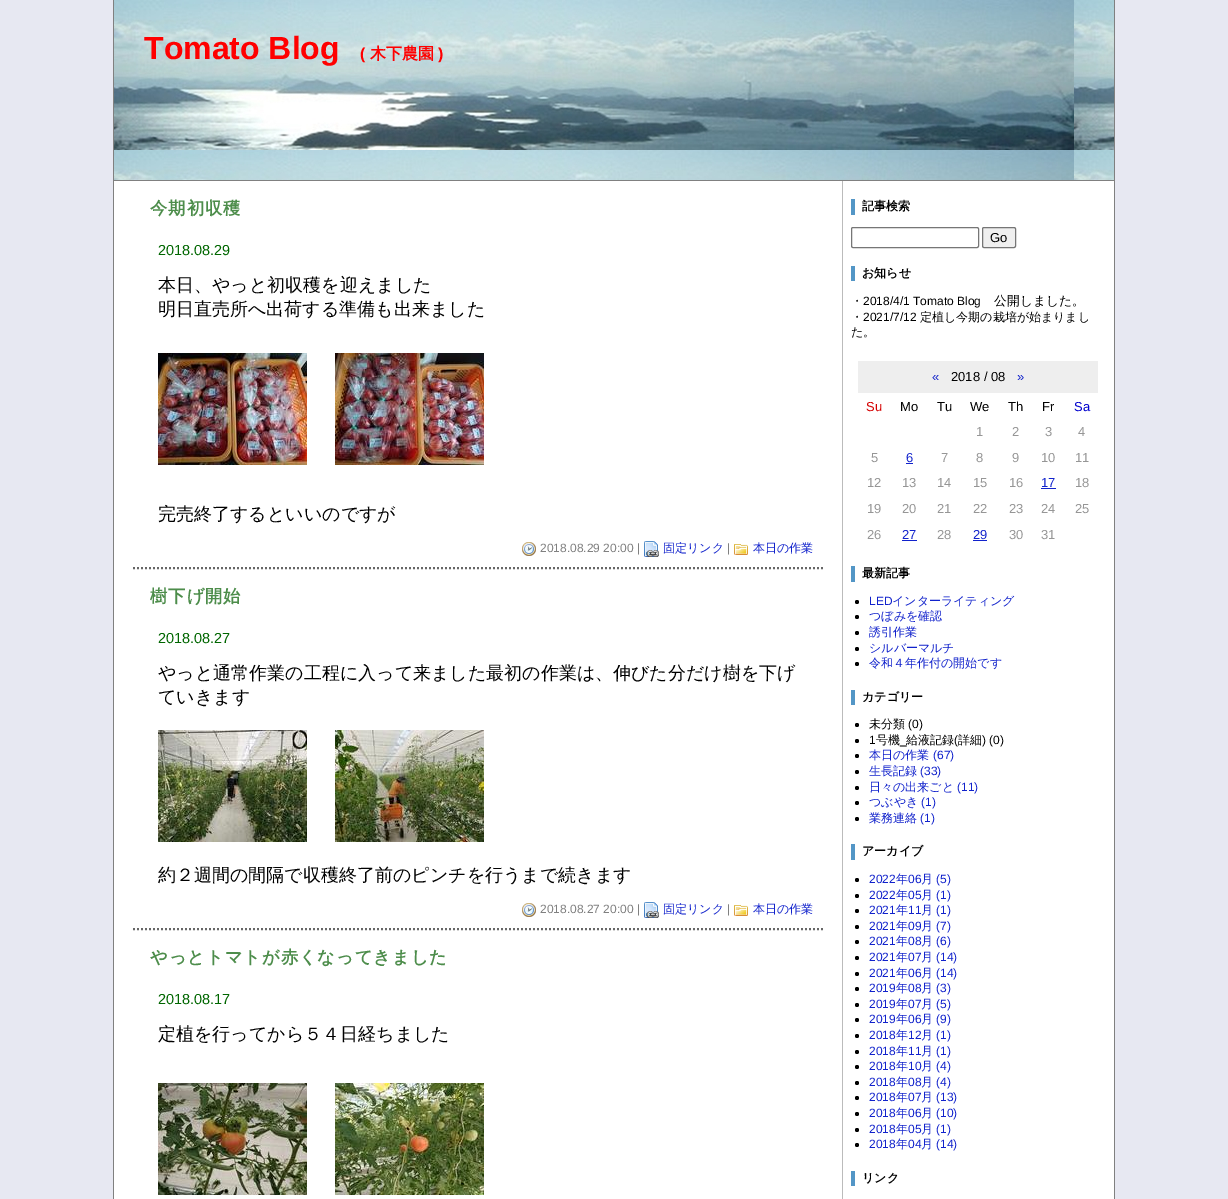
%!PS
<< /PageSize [1228 1199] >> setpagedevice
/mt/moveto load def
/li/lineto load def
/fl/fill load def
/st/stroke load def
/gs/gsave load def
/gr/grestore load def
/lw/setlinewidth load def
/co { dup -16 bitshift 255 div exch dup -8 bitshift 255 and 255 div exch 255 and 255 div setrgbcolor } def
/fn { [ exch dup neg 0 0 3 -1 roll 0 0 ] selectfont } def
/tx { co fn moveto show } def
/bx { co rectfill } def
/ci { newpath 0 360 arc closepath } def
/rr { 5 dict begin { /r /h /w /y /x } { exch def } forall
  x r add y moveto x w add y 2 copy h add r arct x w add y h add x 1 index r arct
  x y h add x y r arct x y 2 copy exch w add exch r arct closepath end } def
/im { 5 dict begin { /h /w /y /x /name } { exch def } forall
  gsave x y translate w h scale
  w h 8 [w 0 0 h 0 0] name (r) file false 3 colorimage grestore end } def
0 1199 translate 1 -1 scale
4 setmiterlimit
0 0 1228 1199 16#E7E8F2 bx
114 181 1000 1018 16#FFFFFF bx
1114 0 1 1199 16#808080 bx
113 0 1 1199 16#808080 bx
(media/1.raw) 114 0 1000 180 im
114 180 1000 1 16#808080 bx
842 181 1 1018 16#BBBBBB bx
16#666666 co
2 lw
[2 2] 0 setdash
133 568 mt 823 568 li st
(media/2.raw) 158 353 149 112 im
(media/3.raw) 335 353 149 112 im
(media/4.raw) 522 542 14 14 im
(media/5.raw) 644 541 15 16 im
(media/6.raw) 734 544 14 11 im
133 929 mt 823 929 li st
(media/7.raw) 158 730 149 112 im
(media/8.raw) 335 730 149 112 im
(media/4.raw) 522 903 14 14 im
(media/5.raw) 644 902 15 16 im
(media/6.raw) 734 905 14 11 im
(media/9.raw) 158 1083 149 112 im
(media/10.raw) 335 1083 149 112 im
851 199 4 16 16#5396C6 bx
16#767676 co
1 lw
[] 0 setdash
851.5 227.5 127 20 1.5 rr st
16#EFEFEF co
982.5 227.5 33 20 1.5 rr gs fl gr
16#767676 co
st
851 266 4 15 16#5396C6 bx
858 361 240 32 16#EEEEEE bx
906 463 7 1 16#1122CC bx
1041 488 15 1 16#1122CC bx
902 540 15 1 16#1122CC bx
973 540 14 1 16#1122CC bx
851 566 4 16 16#5396C6 bx
16#000000 co
857 602 2 ci fl
857 617 2 ci fl
857 633 2 ci fl
857 649 2 ci fl
857 664 2 ci fl
851 690 4 15 16#5396C6 bx
16#000000 co
857 725 2 ci fl
857 741 2 ci fl
857 756 2 ci fl
857 772 2 ci fl
857 788 2 ci fl
857 803 2 ci fl
857 819 2 ci fl
851 844 4 16 16#5396C6 bx
16#000000 co
857 880 2 ci fl
857 896 2 ci fl
857 911 2 ci fl
857 927 2 ci fl
857 942 2 ci fl
857 958 2 ci fl
857 974 2 ci fl
857 989 2 ci fl
857 1005 2 ci fl
857 1020 2 ci fl
857 1036 2 ci fl
857 1052 2 ci fl
857 1067 2 ci fl
857 1083 2 ci fl
857 1098 2 ci fl
857 1114 2 ci fl
857 1130 2 ci fl
857 1145 2 ci fl
851 1171 4 15 16#5396C6 bx
(Tomato Blog) 144 59 /LiberationSans-Bold 32 16#FF0000 tx
(\() 360 59 /LiberationSans-Bold 16 16#FF0000 tx
(木下農園) 370 59 /WenQuanYiZenHei-Bold 16 16#FF0000 tx
(\)) 438 59 /LiberationSans-Bold 16 16#FF0000 tx
/WenQuanYiZenHei-Bold 17.25 fn
16#4D8D4B co
150 214 mt 1 0 (今期初収穫) ashow
(2018.08.29) 158 255 /LiberationSans-Regular 14.5 16#006600 tx
(本日、やっと初収穫を迎えました) 158 291 /WenQuanYiZenHei-Medium 18 16#000000 tx
(明日直売所へ出荷する準備も出来ました) 158 315 /WenQuanYiZenHei-Medium 18 16#000000 tx
(完売終了するといいのですが) 158 520 /WenQuanYiZenHei-Medium 18 16#000000 tx
(2018.08.29 20:00 |) 540 552 /LiberationSans-Regular 12 16#808080 tx
(固定リンク) 663 552 /WenQuanYiZenHei-Medium 12 16#1122CC tx
(|) 727 552 /LiberationSans-Regular 12 16#808080 tx
(本日の作業) 753 552 /WenQuanYiZenHei-Medium 12 16#1122CC tx
/WenQuanYiZenHei-Bold 17.25 fn
16#4D8D4B co
150 602 mt 1 0 (樹下げ開始) ashow
(2018.08.27) 158 643 /LiberationSans-Regular 14.5 16#006600 tx
(やっと通常作業の工程に入って来ました最初の作業は、伸びた分だけ樹を下げ) 158 679 /WenQuanYiZenHei-Medium 18 16#000000 tx
(ていきます) 158 703 /WenQuanYiZenHei-Medium 18 16#000000 tx
(約２週間の間隔で収穫終了前のピンチを行うまで続きます) 158 881 /WenQuanYiZenHei-Medium 18 16#000000 tx
(2018.08.27 20:00 |) 540 913 /LiberationSans-Regular 12 16#808080 tx
(固定リンク) 663 913 /WenQuanYiZenHei-Medium 12 16#1122CC tx
(|) 727 913 /LiberationSans-Regular 12 16#808080 tx
(本日の作業) 753 913 /WenQuanYiZenHei-Medium 12 16#1122CC tx
/WenQuanYiZenHei-Bold 17.25 fn
16#4D8D4B co
150 963 mt 1 0 (やっとトマトが赤くなってきました) ashow
(2018.08.17) 158 1004 /LiberationSans-Regular 14.5 16#006600 tx
(定植を行ってから５４日経ちました) 158 1040 /WenQuanYiZenHei-Medium 18 16#000000 tx
(記事検索) 862 210 /WenQuanYiZenHei-Bold 12 16#000000 tx
(Go) 990 242 /LiberationSans-Regular 13 16#000000 tx
(お知らせ) 862 277 /WenQuanYiZenHei-Bold 12 16#000000 tx
(・) 851 305 /WenQuanYiZenHei-Medium 12 16#000000 tx
(2018/4/1 Tomato Blog) 863 305 /LiberationSans-Regular 12 16#000000 tx
(公開しました。) 994 305 /WenQuanYiZenHei-Medium 12.75 16#000000 tx
(・) 851 321 /WenQuanYiZenHei-Medium 12 16#000000 tx
(2021/7/12) 863 321 /LiberationSans-Regular 12 16#000000 tx
(定植し今期の栽培が始まりまし) 920 321 /WenQuanYiZenHei-Medium 12 16#000000 tx
(た。) 851 336 /WenQuanYiZenHei-Medium 12 16#000000 tx
(«) 932 381 /LiberationSans-Regular 13 16#1122CC tx
(2018 / 08) 951 381 /LiberationSans-Regular 13 16#000000 tx
(») 1017 381 /LiberationSans-Regular 13 16#1122CC tx
(Su) 866 411 /LiberationSans-Regular 13 16#D50000 tx
(Mo) 900 411 /LiberationSans-Regular 13 16#000000 tx
(Tu) 937 411 /LiberationSans-Regular 13 16#000000 tx
(We) 970 411 /LiberationSans-Regular 13 16#000000 tx
(Th) 1008 411 /LiberationSans-Regular 13 16#000000 tx
(Fr) 1042 411 /LiberationSans-Regular 13 16#000000 tx
(Sa) 1074 411 /LiberationSans-Regular 13 16#0000CE tx
(1) 976 436 /LiberationSans-Regular 13 16#969696 tx
(2) 1012 436 /LiberationSans-Regular 13 16#969696 tx
(3) 1045 436 /LiberationSans-Regular 13 16#969696 tx
(4) 1078 436 /LiberationSans-Regular 13 16#969696 tx
(5) 871 462 /LiberationSans-Regular 13 16#969696 tx
(6) 906 462 /LiberationSans-Regular 13 16#1122CC tx
(7) 941 462 /LiberationSans-Regular 13 16#969696 tx
(8) 976 462 /LiberationSans-Regular 13 16#969696 tx
(9) 1012 462 /LiberationSans-Regular 13 16#969696 tx
(10) 1041 462 /LiberationSans-Regular 13 16#969696 tx
(11) 1075 462 /LiberationSans-Regular 13 16#969696 tx
(12) 867 487 /LiberationSans-Regular 13 16#969696 tx
(13) 902 487 /LiberationSans-Regular 13 16#969696 tx
(14) 937 487 /LiberationSans-Regular 13 16#969696 tx
(15) 973 487 /LiberationSans-Regular 13 16#969696 tx
(16) 1009 487 /LiberationSans-Regular 13 16#969696 tx
(17) 1041 487 /LiberationSans-Regular 13 16#1122CC tx
(18) 1075 487 /LiberationSans-Regular 13 16#969696 tx
(19) 867 513 /LiberationSans-Regular 13 16#969696 tx
(20) 902 513 /LiberationSans-Regular 13 16#969696 tx
(21) 937 513 /LiberationSans-Regular 13 16#969696 tx
(22) 973 513 /LiberationSans-Regular 13 16#969696 tx
(23) 1009 513 /LiberationSans-Regular 13 16#969696 tx
(24) 1041 513 /LiberationSans-Regular 13 16#969696 tx
(25) 1075 513 /LiberationSans-Regular 13 16#969696 tx
(26) 867 539 /LiberationSans-Regular 13 16#969696 tx
(27) 902 539 /LiberationSans-Regular 13 16#1122CC tx
(28) 937 539 /LiberationSans-Regular 13 16#969696 tx
(29) 973 539 /LiberationSans-Regular 13 16#1122CC tx
(30) 1009 539 /LiberationSans-Regular 13 16#969696 tx
(31) 1041 539 /LiberationSans-Regular 13 16#969696 tx
(最新記事) 862 577 /WenQuanYiZenHei-Bold 12 16#000000 tx
(LED) 869 605 /LiberationSans-Regular 12 16#1122CC tx
(インターライティング) 892 605 /WenQuanYiZenHei-Medium 12 16#1122CC tx
(つぼみを確認) 869 620 /WenQuanYiZenHei-Medium 12 16#1122CC tx
(誘引作業) 869 636 /WenQuanYiZenHei-Medium 12 16#1122CC tx
(シルバーマルチ) 869 652 /WenQuanYiZenHei-Medium 12 16#1122CC tx
(令和４年作付の開始です) 869 667 /WenQuanYiZenHei-Medium 12 16#1122CC tx
(カテゴリー) 862 701 /WenQuanYiZenHei-Bold 12 16#000000 tx
(未分類) 869 728 /WenQuanYiZenHei-Medium 12 16#000000 tx
(\(0\)) 908 728 /LiberationSans-Regular 12 16#000000 tx
(1) 869 744 /LiberationSans-Regular 12 16#000000 tx
(号機) 876 744 /WenQuanYiZenHei-Medium 12 16#000000 tx
(\() 954 744 /LiberationSans-Regular 12 16#000000 tx
(詳細) 958 744 /WenQuanYiZenHei-Medium 12 16#000000 tx
(\) \(0\)) 982 744 /LiberationSans-Regular 12 16#000000 tx
(_) 900 744 /LiberationSans-Regular 12 16#000000 tx
(給液記録) 906 744 /WenQuanYiZenHei-Medium 12 16#000000 tx
(本日の作業) 869 759 /WenQuanYiZenHei-Medium 12 16#1122CC tx
(\(67\)) 933 759 /LiberationSans-Regular 12 16#1122CC tx
(生長記録) 869 775 /WenQuanYiZenHei-Medium 12 16#1122CC tx
(\(33\)) 920 775 /LiberationSans-Regular 12 16#1122CC tx
(日々の出来ごと) 869 791 /WenQuanYiZenHei-Medium 12 16#1122CC tx
(\(11\)) 957 791 /LiberationSans-Regular 12 16#1122CC tx
(つぶやき) 869 806 /WenQuanYiZenHei-Medium 12 16#1122CC tx
(\(1\)) 921 806 /LiberationSans-Regular 12 16#1122CC tx
(業務連絡) 869 822 /WenQuanYiZenHei-Medium 12 16#1122CC tx
(\(1\)) 920 822 /LiberationSans-Regular 12 16#1122CC tx
(アーカイブ) 862 855 /WenQuanYiZenHei-Bold 12 16#000000 tx
(2022) 869 883 /LiberationSans-Regular 12 16#1122CC tx
(年) 896 883 /WenQuanYiZenHei-Medium 12 16#1122CC tx
(06) 908 883 /LiberationSans-Regular 12 16#1122CC tx
(月) 921 883 /WenQuanYiZenHei-Medium 12 16#1122CC tx
(\(5\)) 936 883 /LiberationSans-Regular 12 16#1122CC tx
(2022) 869 899 /LiberationSans-Regular 12 16#1122CC tx
(年) 896 899 /WenQuanYiZenHei-Medium 12 16#1122CC tx
(05) 908 899 /LiberationSans-Regular 12 16#1122CC tx
(月) 921 899 /WenQuanYiZenHei-Medium 12 16#1122CC tx
(\(1\)) 936 899 /LiberationSans-Regular 12 16#1122CC tx
(2021) 869 914 /LiberationSans-Regular 12 16#1122CC tx
(年) 896 914 /WenQuanYiZenHei-Medium 12 16#1122CC tx
(11) 908 914 /LiberationSans-Regular 12 16#1122CC tx
(月) 921 914 /WenQuanYiZenHei-Medium 12 16#1122CC tx
(\(1\)) 936 914 /LiberationSans-Regular 12 16#1122CC tx
(2021) 869 930 /LiberationSans-Regular 12 16#1122CC tx
(年) 896 930 /WenQuanYiZenHei-Medium 12 16#1122CC tx
(09) 908 930 /LiberationSans-Regular 12 16#1122CC tx
(月) 921 930 /WenQuanYiZenHei-Medium 12 16#1122CC tx
(\(7\)) 936 930 /LiberationSans-Regular 12 16#1122CC tx
(2021) 869 945 /LiberationSans-Regular 12 16#1122CC tx
(年) 896 945 /WenQuanYiZenHei-Medium 12 16#1122CC tx
(08) 908 945 /LiberationSans-Regular 12 16#1122CC tx
(月) 921 945 /WenQuanYiZenHei-Medium 12 16#1122CC tx
(\(6\)) 936 945 /LiberationSans-Regular 12 16#1122CC tx
(2021) 869 961 /LiberationSans-Regular 12 16#1122CC tx
(年) 896 961 /WenQuanYiZenHei-Medium 12 16#1122CC tx
(07) 908 961 /LiberationSans-Regular 12 16#1122CC tx
(月) 921 961 /WenQuanYiZenHei-Medium 12 16#1122CC tx
(\(14\)) 936 961 /LiberationSans-Regular 12 16#1122CC tx
(2021) 869 977 /LiberationSans-Regular 12 16#1122CC tx
(年) 896 977 /WenQuanYiZenHei-Medium 12 16#1122CC tx
(06) 908 977 /LiberationSans-Regular 12 16#1122CC tx
(月) 921 977 /WenQuanYiZenHei-Medium 12 16#1122CC tx
(\(14\)) 936 977 /LiberationSans-Regular 12 16#1122CC tx
(2019) 869 992 /LiberationSans-Regular 12 16#1122CC tx
(年) 896 992 /WenQuanYiZenHei-Medium 12 16#1122CC tx
(08) 908 992 /LiberationSans-Regular 12 16#1122CC tx
(月) 921 992 /WenQuanYiZenHei-Medium 12 16#1122CC tx
(\(3\)) 936 992 /LiberationSans-Regular 12 16#1122CC tx
(2019) 869 1008 /LiberationSans-Regular 12 16#1122CC tx
(年) 896 1008 /WenQuanYiZenHei-Medium 12 16#1122CC tx
(07) 908 1008 /LiberationSans-Regular 12 16#1122CC tx
(月) 921 1008 /WenQuanYiZenHei-Medium 12 16#1122CC tx
(\(5\)) 936 1008 /LiberationSans-Regular 12 16#1122CC tx
(2019) 869 1023 /LiberationSans-Regular 12 16#1122CC tx
(年) 896 1023 /WenQuanYiZenHei-Medium 12 16#1122CC tx
(06) 908 1023 /LiberationSans-Regular 12 16#1122CC tx
(月) 921 1023 /WenQuanYiZenHei-Medium 12 16#1122CC tx
(\(9\)) 936 1023 /LiberationSans-Regular 12 16#1122CC tx
(2018) 869 1039 /LiberationSans-Regular 12 16#1122CC tx
(年) 896 1039 /WenQuanYiZenHei-Medium 12 16#1122CC tx
(12) 908 1039 /LiberationSans-Regular 12 16#1122CC tx
(月) 921 1039 /WenQuanYiZenHei-Medium 12 16#1122CC tx
(\(1\)) 936 1039 /LiberationSans-Regular 12 16#1122CC tx
(2018) 869 1055 /LiberationSans-Regular 12 16#1122CC tx
(年) 896 1055 /WenQuanYiZenHei-Medium 12 16#1122CC tx
(11) 908 1055 /LiberationSans-Regular 12 16#1122CC tx
(月) 921 1055 /WenQuanYiZenHei-Medium 12 16#1122CC tx
(\(1\)) 936 1055 /LiberationSans-Regular 12 16#1122CC tx
(2018) 869 1070 /LiberationSans-Regular 12 16#1122CC tx
(年) 896 1070 /WenQuanYiZenHei-Medium 12 16#1122CC tx
(10) 908 1070 /LiberationSans-Regular 12 16#1122CC tx
(月) 921 1070 /WenQuanYiZenHei-Medium 12 16#1122CC tx
(\(4\)) 936 1070 /LiberationSans-Regular 12 16#1122CC tx
(2018) 869 1086 /LiberationSans-Regular 12 16#1122CC tx
(年) 896 1086 /WenQuanYiZenHei-Medium 12 16#1122CC tx
(08) 908 1086 /LiberationSans-Regular 12 16#1122CC tx
(月) 921 1086 /WenQuanYiZenHei-Medium 12 16#1122CC tx
(\(4\)) 936 1086 /LiberationSans-Regular 12 16#1122CC tx
(2018) 869 1101 /LiberationSans-Regular 12 16#1122CC tx
(年) 896 1101 /WenQuanYiZenHei-Medium 12 16#1122CC tx
(07) 908 1101 /LiberationSans-Regular 12 16#1122CC tx
(月) 921 1101 /WenQuanYiZenHei-Medium 12 16#1122CC tx
(\(13\)) 936 1101 /LiberationSans-Regular 12 16#1122CC tx
(2018) 869 1117 /LiberationSans-Regular 12 16#1122CC tx
(年) 896 1117 /WenQuanYiZenHei-Medium 12 16#1122CC tx
(06) 908 1117 /LiberationSans-Regular 12 16#1122CC tx
(月) 921 1117 /WenQuanYiZenHei-Medium 12 16#1122CC tx
(\(10\)) 936 1117 /LiberationSans-Regular 12 16#1122CC tx
(2018) 869 1133 /LiberationSans-Regular 12 16#1122CC tx
(年) 896 1133 /WenQuanYiZenHei-Medium 12 16#1122CC tx
(05) 908 1133 /LiberationSans-Regular 12 16#1122CC tx
(月) 921 1133 /WenQuanYiZenHei-Medium 12 16#1122CC tx
(\(1\)) 936 1133 /LiberationSans-Regular 12 16#1122CC tx
(2018) 869 1148 /LiberationSans-Regular 12 16#1122CC tx
(年) 896 1148 /WenQuanYiZenHei-Medium 12 16#1122CC tx
(04) 908 1148 /LiberationSans-Regular 12 16#1122CC tx
(月) 921 1148 /WenQuanYiZenHei-Medium 12 16#1122CC tx
(\(14\)) 936 1148 /LiberationSans-Regular 12 16#1122CC tx
(リンク) 862 1182 /WenQuanYiZenHei-Bold 12 16#000000 tx
showpage
